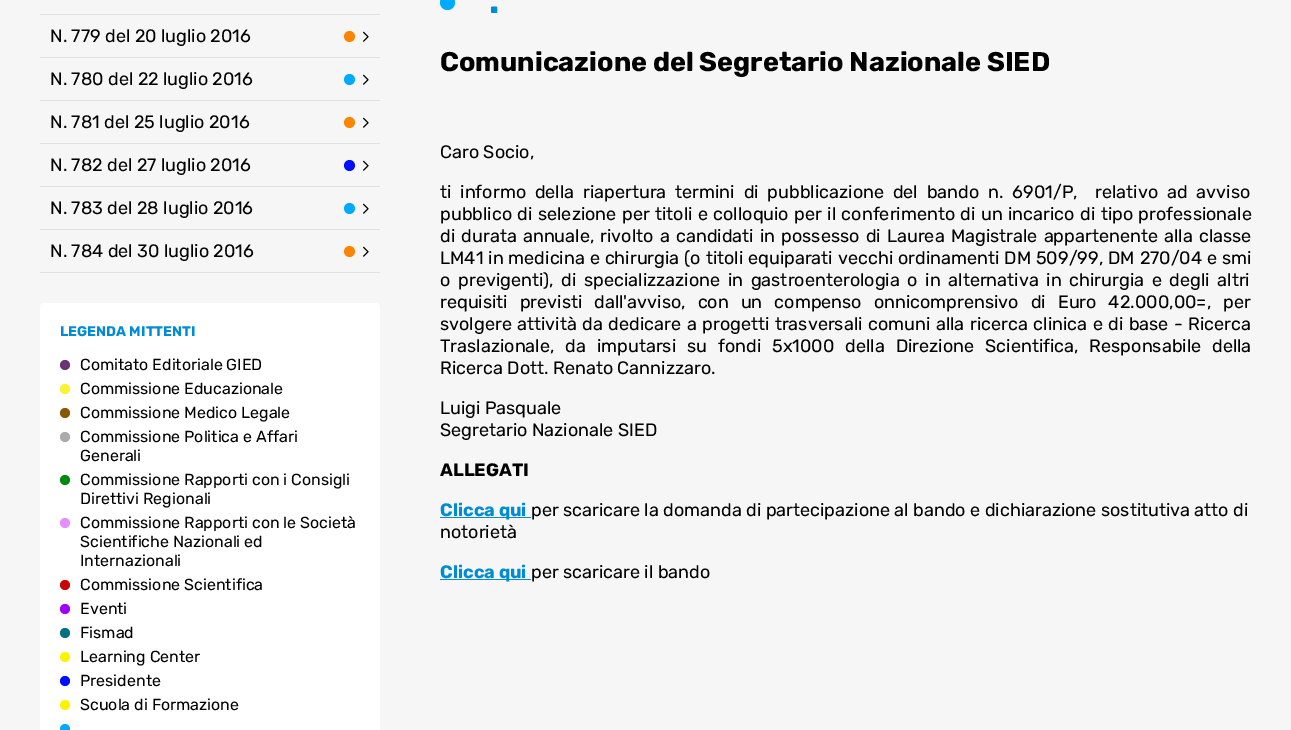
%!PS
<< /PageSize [1291 730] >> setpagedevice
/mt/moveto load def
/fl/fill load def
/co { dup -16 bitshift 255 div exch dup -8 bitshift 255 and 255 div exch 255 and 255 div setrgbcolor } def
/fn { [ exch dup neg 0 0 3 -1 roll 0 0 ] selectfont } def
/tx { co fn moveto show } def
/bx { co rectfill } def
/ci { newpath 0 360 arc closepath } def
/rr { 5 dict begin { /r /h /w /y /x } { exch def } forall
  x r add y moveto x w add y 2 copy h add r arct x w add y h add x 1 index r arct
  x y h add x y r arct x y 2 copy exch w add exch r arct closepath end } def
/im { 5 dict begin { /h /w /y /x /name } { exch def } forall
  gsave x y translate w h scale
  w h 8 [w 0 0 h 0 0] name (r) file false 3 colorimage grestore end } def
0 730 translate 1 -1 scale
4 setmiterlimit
0 0 1291 730 16#F6F6F6 bx
40 14 340 1 16#E2E2E2 bx
40 57 340 1 16#E2E2E2 bx
16#FF8500 co
349.5 36.5 5.5 ci fl
(media/1.raw) 363 31 6 11 im
40 100 340 1 16#E2E2E2 bx
16#00ABFF co
349.5 79.5 5.5 ci fl
(media/1.raw) 363 74 6 11 im
40 143 340 1 16#E2E2E2 bx
16#FF8500 co
349.5 122.5 5.5 ci fl
(media/1.raw) 363 117 6 11 im
40 186 340 1 16#E2E2E2 bx
16#000EFF co
349.5 165.5 5.5 ci fl
(media/1.raw) 363 160 6 11 im
40 229 340 1 16#E2E2E2 bx
16#00ABFF co
349.5 208.5 5.5 ci fl
(media/1.raw) 363 203 6 11 im
40 272 340 1 16#E2E2E2 bx
16#FF8500 co
349.5 251.5 5.5 ci fl
(media/1.raw) 363 246 6 11 im
16#FFFFFF co
40 303 340 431 4 rr fl
16#693475 co
65 365 5 ci fl
16#F9F331 co
65 389 5 ci fl
16#875A00 co
65 413 5 ci fl
16#A8ABAB co
65 437 5 ci fl
16#00890D co
65 480 5 ci fl
16#E68EFF co
65 523 5 ci fl
16#CD0000 co
65 585 5 ci fl
16#9E00FF co
65 609 5 ci fl
16#01717D co
65 633 5 ci fl
16#FFF200 co
65 657 5 ci fl
16#000EFF co
65 681 5 ci fl
16#FFF200 co
65 705 5 ci fl
16#00ABFF co
65 729 5 ci fl
447.5 2.5 7.5 ci fl
440 517 91 1 16#008CD5 bx
440 579 91 1 16#008CD5 bx
(N. 779 del 20 luglio 2016) 50 42 /Rubik-Regular 18 16#000000 tx
(N. 780 del 22 luglio 2016) 50 85 /Rubik-Regular 18 16#000000 tx
(N. 781 del 25 luglio 2016) 50 128 /Rubik-Regular 18 16#000000 tx
(N. 782 del 27 luglio 2016) 50 171 /Rubik-Regular 18 16#000000 tx
(N. 783 del 28 luglio 2016) 50 214 /Rubik-Regular 18 16#000000 tx
(N. 784 del 30 luglio 2016) 50 257 /Rubik-Regular 18 16#000000 tx
(LEGENDA MITTENTI) 60 336 /Rubik-Bold 14 16#008CD5 tx
(Comitato Editoriale GIED) 80 370 /Rubik-Regular 16 16#000000 tx
(Commissione Educazionale) 80 394 /Rubik-Regular 16 16#000000 tx
(Commissione Medico Legale) 80 418 /Rubik-Regular 16 16#000000 tx
(Commissione Politica e Affari) 80 442 /Rubik-Regular 16 16#000000 tx
(Generali) 80 461 /Rubik-Regular 16 16#000000 tx
(Commissione Rapporti con i Consigli) 80 485 /Rubik-Regular 16 16#000000 tx
(Direttivi Regionali) 80 504 /Rubik-Regular 16 16#000000 tx
(Commissione Rapporti con le Società) 80 528 /Rubik-Regular 16 16#000000 tx
(Scientifiche Nazionali ed) 80 547 /Rubik-Regular 16 16#000000 tx
(Internazionali) 80 566 /Rubik-Regular 16 16#000000 tx
(Commissione Scientifica) 80 590 /Rubik-Regular 16 16#000000 tx
(Eventi) 80 614 /Rubik-Regular 16 16#000000 tx
(Fismad) 80 638 /Rubik-Regular 16 16#000000 tx
(Learning Center) 80 662 /Rubik-Regular 16 16#000000 tx
(Presidente) 80 686 /Rubik-Regular 16 16#000000 tx
(Scuola di Formazione) 80 710 /Rubik-Regular 16 16#000000 tx
(.) 489 13 /Rubik-Bold 36 16#008CD5 tx
(Comunicazione del Segretario Nazionale SIED) 440 71 /Rubik-Bold 27 16#000000 tx
(Caro Socio,) 440 158 /Rubik-Regular 18 16#000000 tx
440 198 mt 4.4 0 32 (ti informo della riapertura termini di pubblicazione del bando n. 6901/P,  relativo ad avviso) widthshow
440 220 mt 1 0 32 (pubblico di selezione per titoli e colloquio per il conferimento di un incarico di tipo professionale) widthshow
440 242 mt 1.75 0 32 (di durata annuale, rivolto a candidati in possesso di Laurea Magistrale appartenente alla classe) widthshow
440 264 mt .5 0 32 (LM41 in medicina e chirurgia \(o titoli equiparati vecchi ordinamenti DM 509/99, DM 270/04 e smi) widthshow
440 286 mt 3.25 0 32 (o previgenti\), di specializzazione in gastroenterologia o in alternativa in chirurgia e degli altri) widthshow
440 308 mt 7.5 0 32 (requisiti previsti dall'avviso, con un compenso onnicomprensivo di Euro 42.000,00=, per) widthshow
440 330 mt 1.1 0 32 (svolgere attività da dedicare a progetti trasversali comuni alla ricerca clinica e di base - Ricerca) widthshow
440 352 mt 6.5 0 32 (Traslazionale, da imputarsi su fondi 5x1000 della Direzione Scientifica, Responsabile della) widthshow
(Ricerca Dott. Renato Cannizzaro.) 440 374 /Rubik-Regular 18 16#000000 tx
(Luigi Pasquale) 440 414 /Rubik-Regular 18 16#000000 tx
(Segretario Nazionale SIED) 440 436 /Rubik-Regular 18 16#000000 tx
(ALLEGATI) 440 476 /Rubik-Bold 18 16#000000 tx
(Clicca qui) 440 516 /Rubik-Bold 18 16#008CD5 tx
(per scaricare la domanda di partecipazione al bando e dichiarazione sostitutiva atto di) 531 516 /Rubik-Regular 18 16#000000 tx
(notorietà) 440 538 /Rubik-Regular 18 16#000000 tx
(Clicca qui) 440 578 /Rubik-Bold 18 16#008CD5 tx
(per scaricare il bando) 531 578 /Rubik-Regular 18 16#000000 tx
showpage
